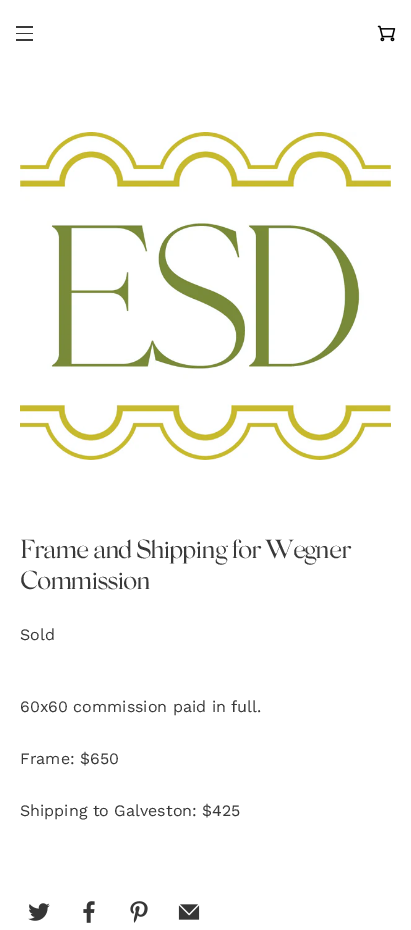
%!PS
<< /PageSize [411 930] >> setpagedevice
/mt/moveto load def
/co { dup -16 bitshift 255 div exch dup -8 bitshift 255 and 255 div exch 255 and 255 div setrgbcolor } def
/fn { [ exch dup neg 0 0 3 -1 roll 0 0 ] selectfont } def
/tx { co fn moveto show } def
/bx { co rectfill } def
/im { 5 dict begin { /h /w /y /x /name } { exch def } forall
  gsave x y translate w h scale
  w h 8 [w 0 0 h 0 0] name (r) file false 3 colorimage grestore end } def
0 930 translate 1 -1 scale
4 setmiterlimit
0 0 411 930 16#FFFFFF bx
16 26 17 2 16#393939 bx
16 33 17 1 16#393939 bx
16 39 17 2 16#393939 bx
(media/1.raw) 377 25 19 17 im
(media/2.raw) 20 132 371 328 im
(media/3.raw) 28 903 22 18 im
(media/4.raw) 83 901 12 22 im
(media/5.raw) 130 901 18 22 im
(media/6.raw) 178 904 22 16 im
/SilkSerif-Regular 26 fn
20 558 mt -1.5 0 (Frame and Shipping for Wegner) ashow
20 589 mt -1.5 0 (Commission) ashow
(Sold) 20 640 /WorkSans-Regular 16 16#393939 tx
(60x60 commission paid in full.) 20 712 /WorkSans-Regular 16 16#393939 tx
(Frame: $650) 20 764 /WorkSans-Regular 16 16#393939 tx
(Shipping to Galveston: $425) 20 816 /WorkSans-Regular 16 16#393939 tx
showpage
